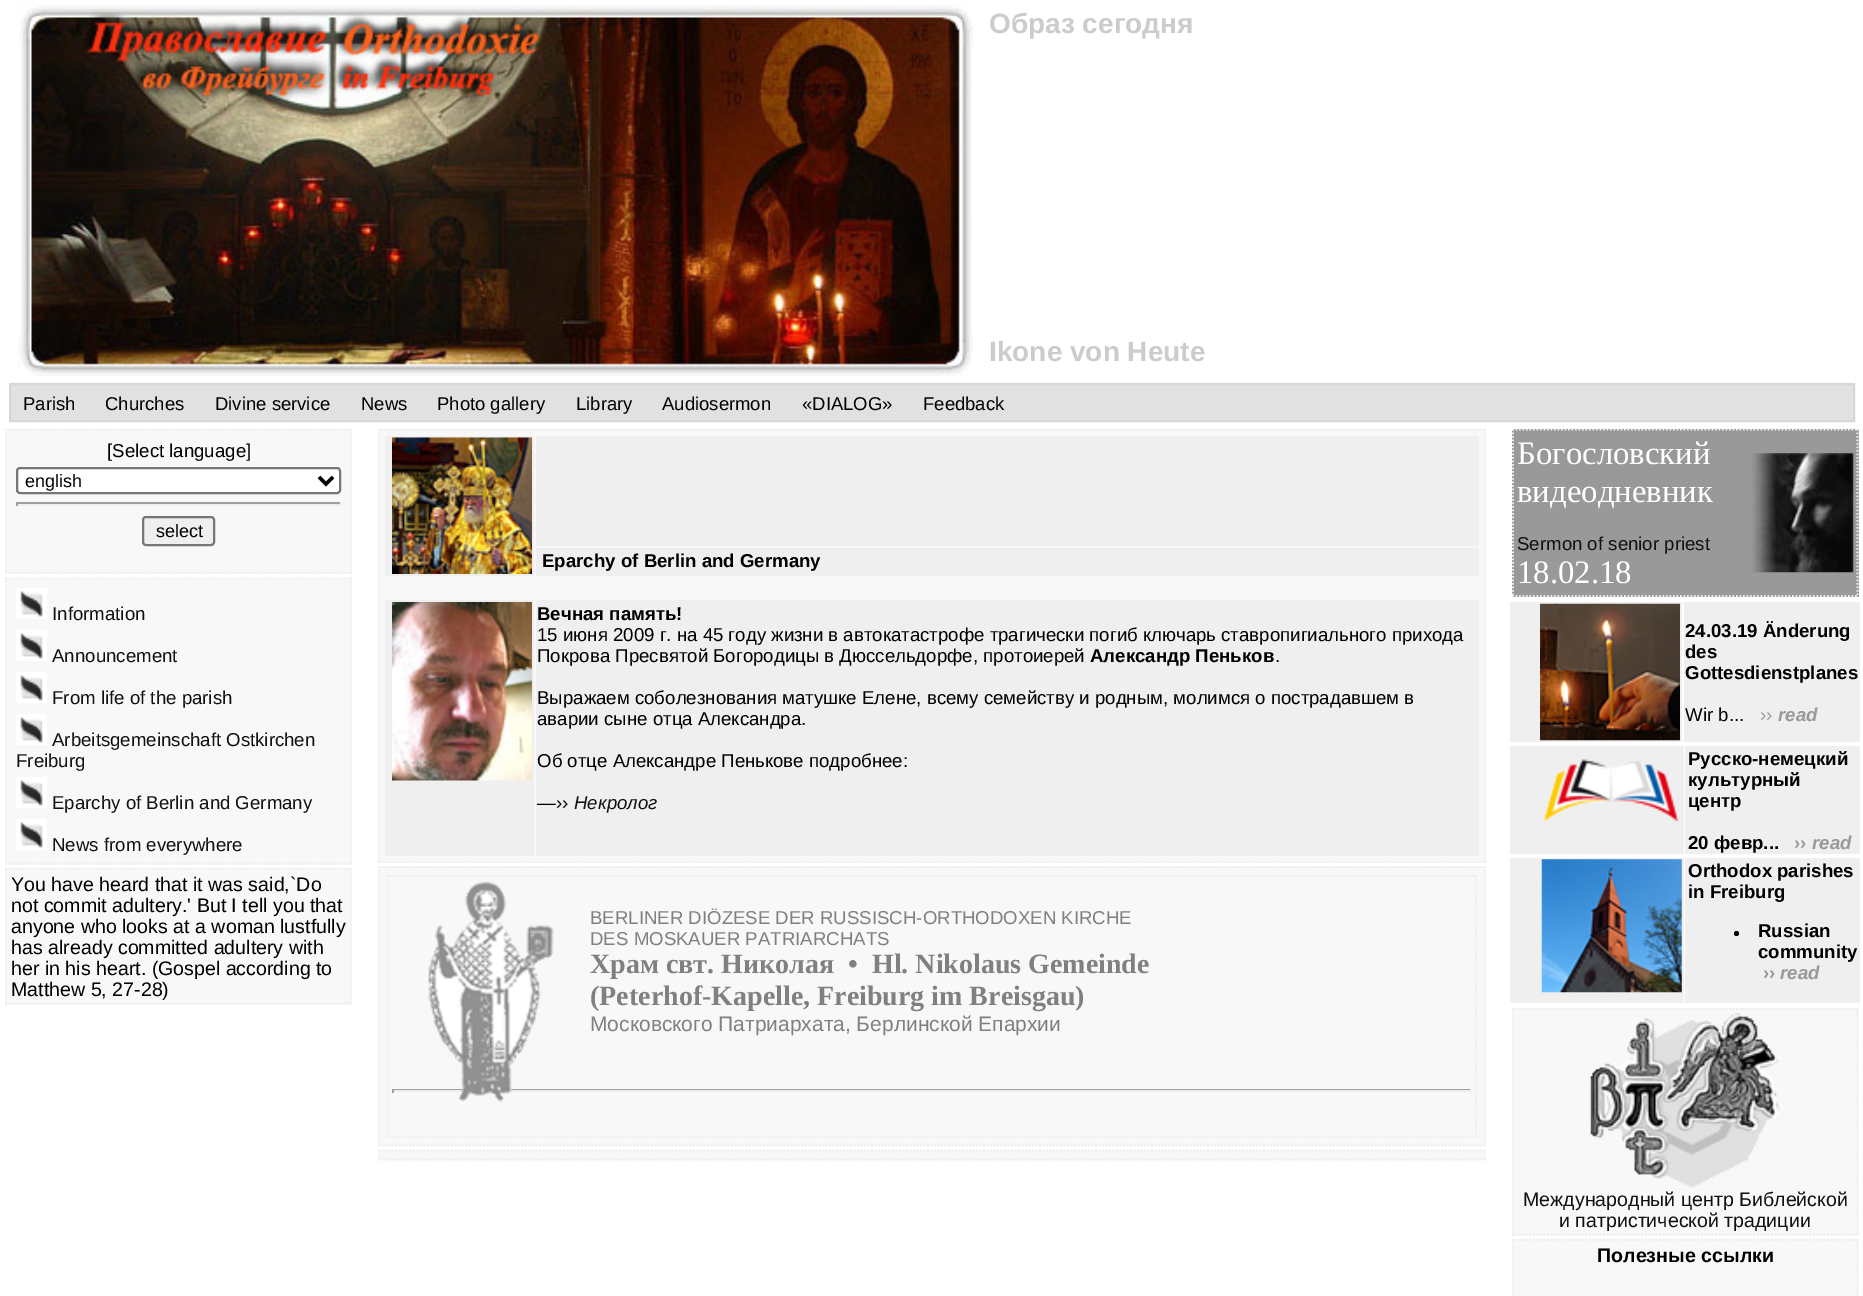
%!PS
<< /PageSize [1863 1296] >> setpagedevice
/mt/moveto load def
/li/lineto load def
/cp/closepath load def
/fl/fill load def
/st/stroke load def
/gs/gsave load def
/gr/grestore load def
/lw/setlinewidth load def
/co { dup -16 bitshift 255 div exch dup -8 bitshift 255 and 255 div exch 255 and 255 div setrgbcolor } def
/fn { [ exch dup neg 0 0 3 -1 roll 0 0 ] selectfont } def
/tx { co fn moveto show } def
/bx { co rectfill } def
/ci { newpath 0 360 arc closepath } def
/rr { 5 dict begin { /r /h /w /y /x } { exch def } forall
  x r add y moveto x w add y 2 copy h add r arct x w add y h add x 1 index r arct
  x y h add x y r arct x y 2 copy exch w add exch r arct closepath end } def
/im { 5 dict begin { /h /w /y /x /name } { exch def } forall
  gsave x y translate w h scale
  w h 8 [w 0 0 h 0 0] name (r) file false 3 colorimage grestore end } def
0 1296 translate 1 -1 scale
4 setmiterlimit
0 0 1863 1296 16#FFFFFF bx
(media/1.raw) 18 4 955 372 im
16#E1E1E1 co
10 384 mt 1854 384 li 1854 421 li 10 421 li cp gs fl gr
16#D7D7D7 co
2 lw
st
5 429 347 145 16#F8F8F8 bx
16#EEEEEE co
1.8 lw
[1.75 1.75] 0 setdash
5 429.5 mt 352 429.5 li st
351 429 mt 351 574 li st
5 573 mt 352 573 li st
6 429 mt 6 574 li st
16#FFFFFF co
17 468 323 25 3 rr gs fl gr
16#767676 co
2 lw
[] 0 setdash
st
16#000000 co
3.5 lw
319 477 mt 326 484 li 333 477 li st
16 502 325 2 16#9F9F9F bx
340 502 2 4 16#EEEEEE bx
16 504 325 2 16#EEEEEE bx
16 502 2 4 16#9F9F9F bx
16#EFEFEF co
143 517 71 28 3 rr gs fl gr
16#767676 co
2 lw
st
5 578 347 287 16#F8F8F8 bx
16#EEEEEE co
1.8 lw
[1.75 1.75] 0 setdash
5 578.5 mt 352 578.5 li st
351 577.5 mt 351 864.5 li st
5 863.5 mt 352 863.5 li st
6 577.5 mt 6 864.5 li st
(media/2.raw) 16 588 31 31 im
(media/2.raw) 16 630 31 31 im
(media/2.raw) 16 672 31 31 im
(media/2.raw) 16 714 31 31 im
(media/2.raw) 16 777 31 31 im
(media/2.raw) 16 819 31 31 im
5 868 347 137 16#F8F8F8 bx
16#EEEEEE co
5 869 mt 352 869 li st
351 868 mt 351 1004.5 li st
5 1003.5 mt 352 1003.5 li st
6 868 mt 6 1004.5 li st
378 429 1108 434 16#F8F8F8 bx
16#EEEEEE co
378 429.5 mt 1486 429.5 li st
1485 429 mt 1485 863 li st
378 862 mt 1486 862 li st
379 429 mt 379 863 li st
385 436 149 140 16#EFEFEF bx
(media/3.raw) 392 437 140 137 im
536 436 943 110 16#EFEFEF bx
536 548 943 28 16#EFEFEF bx
385 600 149 256 16#EFEFEF bx
(media/4.raw) 392 602 140 179 im
536 600 943 256 16#EFEFEF bx
378 866 1108 280 16#F8F8F8 bx
16#EEEEEE co
378 867 mt 1486 867 li st
1485 866 mt 1485 1146 li st
378 1145.5 mt 1486 1145.5 li st
379 866 mt 379 1146 li st
387 876 mt 1477 876 li st
1476 875 mt 1476 1137.5 li st
387 1136.5 mt 1477 1136.5 li st
387.5 875 mt 387.5 1137.5 li st
392 1089 1080 1 16#9F9F9F bx
1470 1089 2 4 16#EEEEEE bx
392 1090 1080 2 16#EEEEEE bx
(media/5.raw) 428 881 126 221 im
392 1089 2 4 16#9F9F9F bx
378 1150 1108 10 16#F8F8F8 bx
16#EEEEEE co
378 1150.5 mt 1486 1150.5 li st
[] 0 setdash
1485 1150 mt 1485 1151.5 li 1485 1153.5 mt 1485 1155 li 1485 1157 mt 1485 1158.5 li st
[1.75 1.75] 0 setdash
378 1159.5 mt 1486 1159.5 li st
[] 0 setdash
379 1150 mt 379 1151.5 li 379 1153.5 mt 379 1155 li 379 1157 mt 379 1158.5 li st
1512 429 347 168 16#999999 bx
16#EEEEEE co
[1.75 1.75] 0 setdash
1512 429.5 mt 1858.5 429.5 li st
1857.5 429 mt 1857.5 597 li st
1512 596 mt 1858.5 596 li st
1513 429 mt 1513 597 li st
(media/6.raw) 1752 453 102 120 im
1510 602 172 140 16#EFEFEF bx
(media/7.raw) 1540 603 140 138 im
1684 602 176 140 16#EFEFEF bx
1510 746 174 108 16#EFEFEF bx
(media/8.raw) 1543 759 136 63 im
1685 746 175 108 16#EFEFEF bx
1510 858 174 145 16#EFEFEF bx
(media/9.raw) 1541 859 141 134 im
1685 858 175 145 16#EFEFEF bx
16#000000 co
1736.5 933.5 2.5 ci fl
1512 1008 347 228 16#F8F8F8 bx
16#EEEEEE co
1512 1009 mt 1858.5 1009 li st
1857.5 1008 mt 1857.5 1235.5 li st
1512 1234.5 mt 1858.5 1234.5 li st
1513 1008 mt 1513 1235.5 li st
(media/10.raw) 1590 1013 190 175 im
1512 1239 347 57 16#F8F8F8 bx
16#EEEEEE co
1512 1240 mt 1858.5 1240 li st
1857.5 1239 mt 1857.5 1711.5 li st
1513 1239 mt 1513 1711.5 li st
(Образ сегодня) 989 33 /LiberationSans-Bold 28 16#CCCCCC tx
(Ikone von Heute) 989 361 /LiberationSans-Bold 28 16#CCCCCC tx
(Parish) 23 410 /LiberationSans-Regular 18.5 16#000000 tx
(Churches) 105 410 /LiberationSans-Regular 18.5 16#000000 tx
(Divine service) 215 410 /LiberationSans-Regular 18.5 16#000000 tx
(News) 361 410 /LiberationSans-Regular 18.5 16#000000 tx
(Photo gallery) 437 410 /LiberationSans-Regular 18.5 16#000000 tx
(Library) 576 410 /LiberationSans-Regular 18.5 16#000000 tx
(Audiosermon) 662 410 /LiberationSans-Regular 18.5 16#000000 tx
(«DIALOG») 802 410 /LiberationSans-Regular 18.5 16#000000 tx
(Feedback) 923 410 /LiberationSans-Regular 18.5 16#000000 tx
([Select language]) 107 457 /LiberationSans-Regular 18.65 16#000000 tx
(english) 25 487 /LiberationSans-Regular 18 16#000000 tx
(select) 156 537 /LiberationSans-Regular 18 16#000000 tx
(Information) 52 620 /LiberationSans-Regular 18.65 16#111111 tx
(Announcement) 52 662 /LiberationSans-Regular 18.65 16#111111 tx
(From life of the parish) 52 704 /LiberationSans-Regular 18.65 16#111111 tx
(Arbeitsgemeinschaft Ostkirchen) 52 746 /LiberationSans-Regular 18.65 16#111111 tx
(Freiburg) 16 767 /LiberationSans-Regular 18.65 16#111111 tx
(Eparchy of Berlin and Germany) 52 809 /LiberationSans-Regular 18.65 16#111111 tx
(News from everywhere) 52 851 /LiberationSans-Regular 18.65 16#111111 tx
(You have heard that it was said,`Do) 11 891 /LiberationSans-Regular 19.6 16#000000 tx
(not commit adultery.' But I tell you that) 11 912 /LiberationSans-Regular 19.6 16#000000 tx
(anyone who looks at a woman lustfully) 11 933 /LiberationSans-Regular 19.6 16#000000 tx
(has already committed adultery with) 11 954 /LiberationSans-Regular 19.6 16#000000 tx
(her in his heart. \(Gospel according to) 11 975 /LiberationSans-Regular 19.6 16#000000 tx
(Matthew 5, 27-28\)) 11 996 /LiberationSans-Regular 19.6 16#000000 tx
(Eparchy of Berlin and Germany) 542 567 /LiberationSans-Bold 18.65 16#000000 tx
(Вечная память!) 537 620 /LiberationSans-Bold 18.65 16#000000 tx
(15 июня 2009 г. на 45 году жизни в автокатастрофе трагически погиб ключарь ставропигиального прихода) 537 641 /LiberationSans-Regular 18.65 16#000000 tx
(Покрова Пресвятой Богородицы в Дюссельдорфе, протоиерей) 537 662 /LiberationSans-Regular 18.65 16#000000 tx
(Александр Пеньков) 1090 662 /LiberationSans-Bold 18.65 16#000000 tx
(.) 1275 662 /LiberationSans-Regular 18.65 16#000000 tx
(Выражаем соболезнования матушке Елене, всему семейству и родным, молимся о пострадавшем в) 537 704 /LiberationSans-Regular 18.65 16#000000 tx
(аварии сыне отца Александра.) 537 725 /LiberationSans-Regular 18.65 16#000000 tx
(Об отце Александре Пенькове подробнее:) 537 767 /LiberationSans-Regular 18.65 16#000000 tx
(—››) 537 809 /LiberationSans-Regular 18.65 16#000000 tx
(Некролог) 574 809 /LiberationSans-Italic 18.65 16#111111 tx
(BERLINER DIÖZESE DER RUSSISCH-ORTHODOXEN KIRCHE) 590 924 /LiberationSans-Regular 18.65 16#808080 tx
(DES MOSKAUER PATRIARCHATS) 590 945 /LiberationSans-Regular 18.65 16#808080 tx
(Храм свт. Николая) 590 973 /LiberationSerif-Bold 28 16#808080 tx
(•  Hl. Nikolaus Gemeinde) 848 973 /LiberationSerif-Bold 28 16#808080 tx
(\(Peterhof-Kapelle, Freiburg im Breisgau\)) 590 1005 /LiberationSerif-Bold 28 16#808080 tx
(Московского Патриархата, Берлинской Епархии) 590 1031 /LiberationSans-Regular 21 16#808080 tx
(Богословский) 1517 464 /LiberationSerif-Regular 32.75 16#FFFFFF tx
(видеодневник) 1517 502 /LiberationSerif-Regular 32.75 16#FFFFFF tx
(Sermon of senior priest) 1517 550 /LiberationSans-Regular 18.65 16#111111 tx
(18.02.18) 1517 583 /LiberationSerif-Regular 32.75 16#FFFFFF tx
(24.03.19 Änderung) 1685 637 /LiberationSans-Bold 18.65 16#000000 tx
(des) 1685 658 /LiberationSans-Bold 18.65 16#000000 tx
(Gottesdienstplanes) 1685 679 /LiberationSans-Bold 18.65 16#000000 tx
(Wir b...) 1685 721 /LiberationSans-Regular 18.65 16#000000 tx
(››) 1760 721 /LiberationSans-Regular 18.65 16#999999 tx
(read) 1778 721 /LiberationSans-BoldItalic 18.65 16#999999 tx
(Русско-немецкий) 1688 765 /LiberationSans-Bold 18.65 16#000000 tx
(культурный) 1688 786 /LiberationSans-Bold 18.65 16#000000 tx
(центр) 1688 807 /LiberationSans-Bold 18.65 16#000000 tx
(20 февр...) 1688 849 /LiberationSans-Bold 18.65 16#000000 tx
(››) 1794 849 /LiberationSans-Bold 18.65 16#999999 tx
(read) 1812 849 /LiberationSans-BoldItalic 18.65 16#999999 tx
(Orthodox parishes) 1688 877 /LiberationSans-Bold 18.65 16#000000 tx
(in Freiburg) 1688 898 /LiberationSans-Bold 18.65 16#000000 tx
(Russian) 1758 937 /LiberationSans-Bold 18.65 16#000000 tx
(community) 1758 958 /LiberationSans-Bold 18.65 16#000000 tx
(››) 1763 979 /LiberationSans-Bold 18.65 16#999999 tx
(read) 1780 979 /LiberationSans-BoldItalic 18.65 16#999999 tx
(Международный центр Библейской) 1523 1206 /LiberationSans-Regular 19.6 16#111111 tx
(и патристической традиции) 1559 1227 /LiberationSans-Regular 19.6 16#111111 tx
(Полезные ссылки) 1597 1262 /LiberationSans-Bold 19.6 16#000000 tx
showpage
